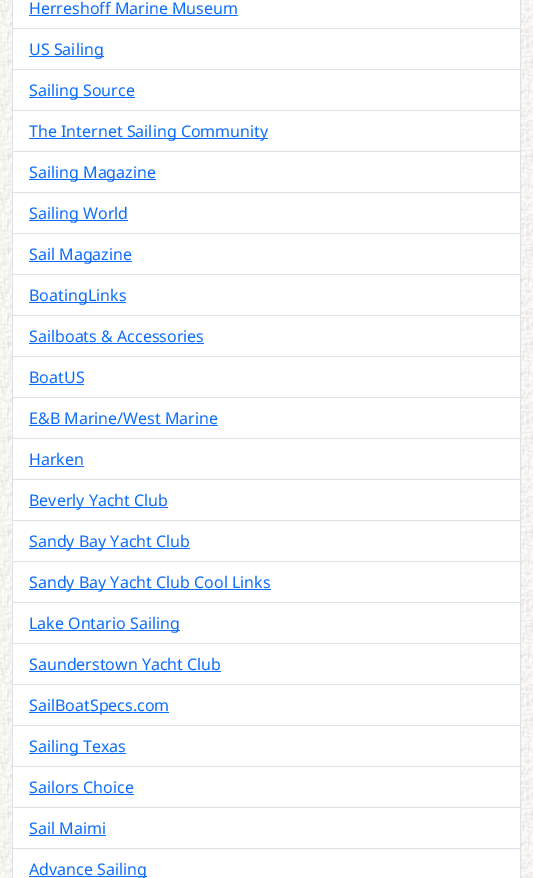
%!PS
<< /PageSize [533 878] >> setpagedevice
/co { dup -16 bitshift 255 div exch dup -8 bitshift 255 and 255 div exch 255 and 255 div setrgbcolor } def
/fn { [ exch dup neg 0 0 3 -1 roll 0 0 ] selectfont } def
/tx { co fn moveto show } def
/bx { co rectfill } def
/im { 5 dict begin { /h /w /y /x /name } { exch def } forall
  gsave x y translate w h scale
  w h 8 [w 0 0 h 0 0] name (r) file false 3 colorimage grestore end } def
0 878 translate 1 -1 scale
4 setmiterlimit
0 0 533 878 16#FFFFFF bx
(media/1.raw) 0 0 533 878 im
13 0 507 28 16#FFFFFF bx
520 0 1 878 16#DEE2E6 bx
12 28 509 1 16#DEE2E6 bx
12 0 1 29 16#DEE2E6 bx
29 15 209 1 16#0D6EFD bx
13 29 507 40 16#FFFFFF bx
12 69 509 1 16#DEE2E6 bx
12 29 1 41 16#DEE2E6 bx
29 56 75 1 16#0D6EFD bx
13 70 507 40 16#FFFFFF bx
12 110 509 1 16#DEE2E6 bx
12 70 1 41 16#DEE2E6 bx
29 97 106 1 16#0D6EFD bx
13 111 507 40 16#FFFFFF bx
12 151 509 1 16#DEE2E6 bx
12 111 1 41 16#DEE2E6 bx
29 138 239 1 16#0D6EFD bx
13 152 507 40 16#FFFFFF bx
12 192 509 1 16#DEE2E6 bx
12 152 1 41 16#DEE2E6 bx
29 179 127 1 16#0D6EFD bx
13 193 507 40 16#FFFFFF bx
12 233 509 1 16#DEE2E6 bx
12 193 1 41 16#DEE2E6 bx
29 220 99 1 16#0D6EFD bx
13 234 507 40 16#FFFFFF bx
12 274 509 1 16#DEE2E6 bx
12 234 1 41 16#DEE2E6 bx
29 261 103 1 16#0D6EFD bx
13 275 507 40 16#FFFFFF bx
12 315 509 1 16#DEE2E6 bx
12 275 1 41 16#DEE2E6 bx
29 302 97 1 16#0D6EFD bx
13 316 507 40 16#FFFFFF bx
12 356 509 1 16#DEE2E6 bx
12 316 1 41 16#DEE2E6 bx
29 343 175 1 16#0D6EFD bx
13 357 507 40 16#FFFFFF bx
12 397 509 1 16#DEE2E6 bx
12 357 1 41 16#DEE2E6 bx
29 384 55 1 16#0D6EFD bx
13 398 507 40 16#FFFFFF bx
12 438 509 1 16#DEE2E6 bx
12 398 1 41 16#DEE2E6 bx
29 425 189 1 16#0D6EFD bx
13 439 507 40 16#FFFFFF bx
12 479 509 1 16#DEE2E6 bx
12 439 1 41 16#DEE2E6 bx
29 466 55 1 16#0D6EFD bx
13 480 507 40 16#FFFFFF bx
12 520 509 1 16#DEE2E6 bx
12 480 1 41 16#DEE2E6 bx
29 507 139 1 16#0D6EFD bx
13 521 507 40 16#FFFFFF bx
12 561 509 1 16#DEE2E6 bx
12 521 1 41 16#DEE2E6 bx
29 548 161 1 16#0D6EFD bx
13 562 507 40 16#FFFFFF bx
12 602 509 1 16#DEE2E6 bx
12 562 1 41 16#DEE2E6 bx
29 589 242 1 16#0D6EFD bx
13 603 507 40 16#FFFFFF bx
12 643 509 1 16#DEE2E6 bx
12 603 1 41 16#DEE2E6 bx
29 630 151 1 16#0D6EFD bx
13 644 507 40 16#FFFFFF bx
12 684 509 1 16#DEE2E6 bx
12 644 1 41 16#DEE2E6 bx
29 671 192 1 16#0D6EFD bx
13 685 507 40 16#FFFFFF bx
12 725 509 1 16#DEE2E6 bx
12 685 1 41 16#DEE2E6 bx
29 712 140 1 16#0D6EFD bx
13 726 507 40 16#FFFFFF bx
12 766 509 1 16#DEE2E6 bx
12 726 1 41 16#DEE2E6 bx
29 753 97 1 16#0D6EFD bx
13 767 507 40 16#FFFFFF bx
12 807 509 1 16#DEE2E6 bx
12 767 1 41 16#DEE2E6 bx
29 794 105 1 16#0D6EFD bx
13 808 507 40 16#FFFFFF bx
12 848 509 1 16#DEE2E6 bx
12 808 1 70 16#DEE2E6 bx
29 835 77 1 16#0D6EFD bx
13 849 507 29 16#FFFFFF bx
29 876 118 1 16#0D6EFD bx
(Herreshoff Marine Museum) 29 14 /NotoSans-Regular 16 16#0D6EFD tx
(US Sailing) 29 55 /NotoSans-Regular 16 16#0D6EFD tx
(Sailing Source) 29 96 /NotoSans-Regular 16 16#0D6EFD tx
(The Internet Sailing Community) 29 137 /NotoSans-Regular 16 16#0D6EFD tx
(Sailing Magazine) 29 178 /NotoSans-Regular 16 16#0D6EFD tx
(Sailing World) 29 219 /NotoSans-Regular 16 16#0D6EFD tx
(Sail Magazine) 29 260 /NotoSans-Regular 16 16#0D6EFD tx
(BoatingLinks) 29 301 /NotoSans-Regular 16 16#0D6EFD tx
(Sailboats & Accessories) 29 342 /NotoSans-Regular 16 16#0D6EFD tx
(BoatUS) 29 383 /NotoSans-Regular 16 16#0D6EFD tx
(E&B Marine/West Marine) 29 424 /NotoSans-Regular 16 16#0D6EFD tx
(Harken) 29 465 /NotoSans-Regular 16 16#0D6EFD tx
(Beverly Yacht Club) 29 506 /NotoSans-Regular 16 16#0D6EFD tx
(Sandy Bay Yacht Club) 29 547 /NotoSans-Regular 16 16#0D6EFD tx
(Sandy Bay Yacht Club Cool Links) 29 588 /NotoSans-Regular 16 16#0D6EFD tx
(Lake Ontario Sailing) 29 629 /NotoSans-Regular 16 16#0D6EFD tx
(Saunderstown Yacht Club) 29 670 /NotoSans-Regular 16 16#0D6EFD tx
(SailBoatSpecs.com) 29 711 /NotoSans-Regular 16 16#0D6EFD tx
(Sailing Texas) 29 752 /NotoSans-Regular 16 16#0D6EFD tx
(Sailors Choice) 29 793 /NotoSans-Regular 16 16#0D6EFD tx
(Sail Maimi) 29 834 /NotoSans-Regular 16 16#0D6EFD tx
(Advance Sailing) 29 875 /NotoSans-Regular 16 16#0D6EFD tx
showpage
